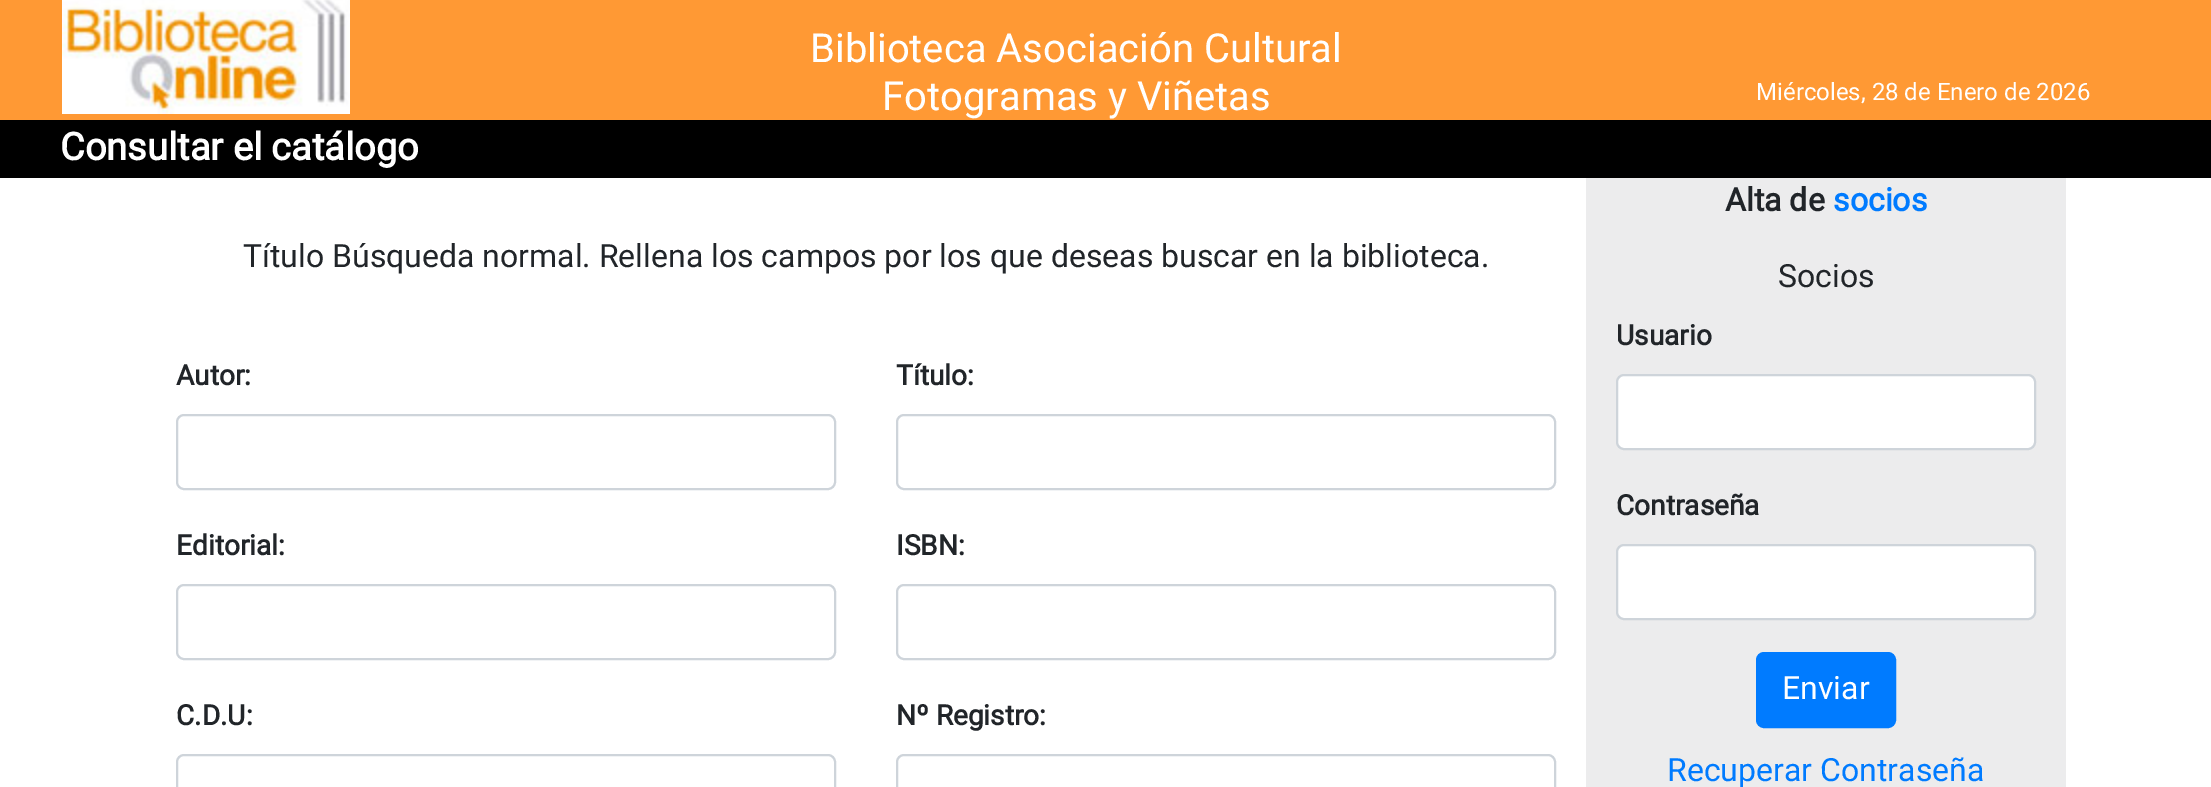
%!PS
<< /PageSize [2211 787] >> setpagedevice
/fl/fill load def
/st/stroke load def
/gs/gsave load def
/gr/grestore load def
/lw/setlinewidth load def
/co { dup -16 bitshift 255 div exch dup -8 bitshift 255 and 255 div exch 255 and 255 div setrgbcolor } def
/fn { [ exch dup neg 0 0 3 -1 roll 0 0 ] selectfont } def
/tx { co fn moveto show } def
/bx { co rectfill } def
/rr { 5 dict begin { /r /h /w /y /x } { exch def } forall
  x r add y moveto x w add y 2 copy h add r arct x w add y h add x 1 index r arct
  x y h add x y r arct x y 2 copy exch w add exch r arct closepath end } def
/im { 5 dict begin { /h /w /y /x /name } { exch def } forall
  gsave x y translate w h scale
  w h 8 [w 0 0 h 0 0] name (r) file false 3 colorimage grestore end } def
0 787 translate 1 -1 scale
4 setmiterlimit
0 0 2211 787 16#FFFFFF bx
0 0 2211 120 16#FF9934 bx
(media/1.raw) 62 0 288 114 im
0 120 2211 58 16#000000 bx
16#CED4DA co
2 lw
177 415 658 74 7 rr st
897 415 658 74 7 rr st
177 585 658 74 7 rr st
897 585 658 74 7 rr st
177 755 658 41 7 rr st
897 755 658 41 7 rr st
1586 178 480 609 16#ECECED bx
16#FFFFFF co
1617 375 418 74 7 rr gs fl gr
16#CED4DA co
st
16#FFFFFF co
1617 545 418 74 7 rr gs fl gr
16#CED4DA co
st
16#007BFF co
1757 653 138 74 7 rr gs fl gr
st
(Biblioteca Asociación Cultural) 810 62 /Roboto-Regular 40 16#FFFFFF tx
(Fotogramas y Viñetas) 882 110 /Roboto-Regular 40 16#FFFFFF tx
(Miércoles, 28 de Enero de 2026) 1756 100 /Roboto-Regular 24 16#FFFFFF tx
(Consultar el catálogo) 60 160 /Roboto-Bold 38 16#FFFFFF tx
(Título Búsqueda normal. Rellena los campos por los que deseas buscar en la biblioteca.) 243 267 /Roboto-Regular 32 16#212529 tx
(Autor:) 176 385 /Roboto-Bold 28 16#212529 tx
(Título:) 896 385 /Roboto-Bold 28 16#212529 tx
(Editorial:) 176 555 /Roboto-Bold 28 16#212529 tx
(ISBN:) 896 555 /Roboto-Bold 28 16#212529 tx
(C.D.U:) 176 725 /Roboto-Bold 28 16#212529 tx
(Nº Registro:) 896 725 /Roboto-Bold 28 16#212529 tx
(Alta de) 1725 211 /Roboto-Bold 32 16#212529 tx
(socios) 1833 211 /Roboto-Bold 32 16#007BFF tx
(Socios) 1778 287 /Roboto-Regular 32 16#212529 tx
(Usuario) 1616 345 /Roboto-Bold 28 16#212529 tx
(Contraseña) 1616 515 /Roboto-Bold 28 16#212529 tx
(Enviar) 1782 699 /Roboto-Regular 32 16#FFFFFF tx
(Recuperar Contraseña) 1667 781 /Roboto-Regular 32 16#007BFF tx
showpage
